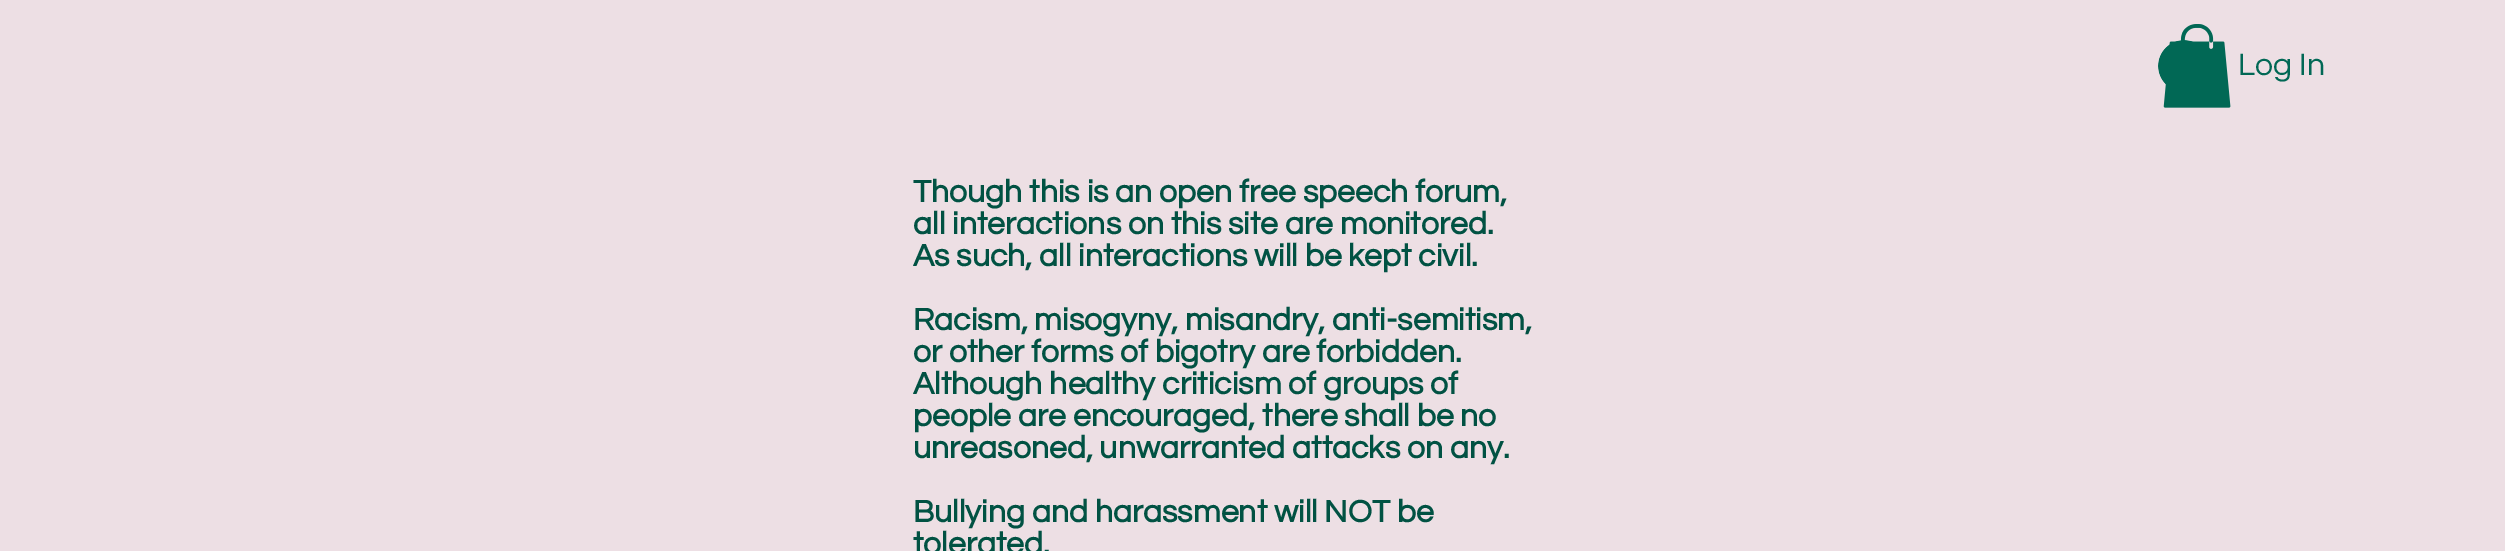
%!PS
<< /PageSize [2505 551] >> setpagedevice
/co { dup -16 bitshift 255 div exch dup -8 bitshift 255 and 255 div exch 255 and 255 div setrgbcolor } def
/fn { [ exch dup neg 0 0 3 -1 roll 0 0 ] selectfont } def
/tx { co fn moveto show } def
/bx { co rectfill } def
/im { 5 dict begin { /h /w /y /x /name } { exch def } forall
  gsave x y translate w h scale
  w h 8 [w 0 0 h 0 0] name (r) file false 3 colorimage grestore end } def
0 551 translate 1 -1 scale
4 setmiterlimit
0 0 2505 551 16#EDDFE4 bx
(media/2.raw) 2158 40 36 45 im
(media/1.raw) 2163 24 68 84 im
(Log In) 2238 75 /Questrial-Regular 32 16#016855 tx
(Though this is an open free speech forum,) 913 202 /Questrial-Bold 32 16#015243 tx
(all interactions on this site are monitored.) 913 234 /Questrial-Bold 32 16#015243 tx
(As such, all interactions will be kept civil.) 913 266 /Questrial-Bold 32 16#015243 tx
(Racism, misogyny, misandry, anti-semitism,) 913 330 /Questrial-Bold 32 16#015243 tx
(or other forms of bigotry are forbidden.) 913 362 /Questrial-Bold 32 16#015243 tx
(Although healthy criticism of groups of) 913 394 /Questrial-Bold 32 16#015243 tx
(people are encouraged, there shall be no) 913 426 /Questrial-Bold 32 16#015243 tx
(unreasoned, unwarranted attacks on any.) 913 458 /Questrial-Bold 32 16#015243 tx
(Bullying and harassment will NOT be) 913 522 /Questrial-Bold 32 16#015243 tx
(tolerated.) 913 554 /Questrial-Bold 32 16#015243 tx
showpage
